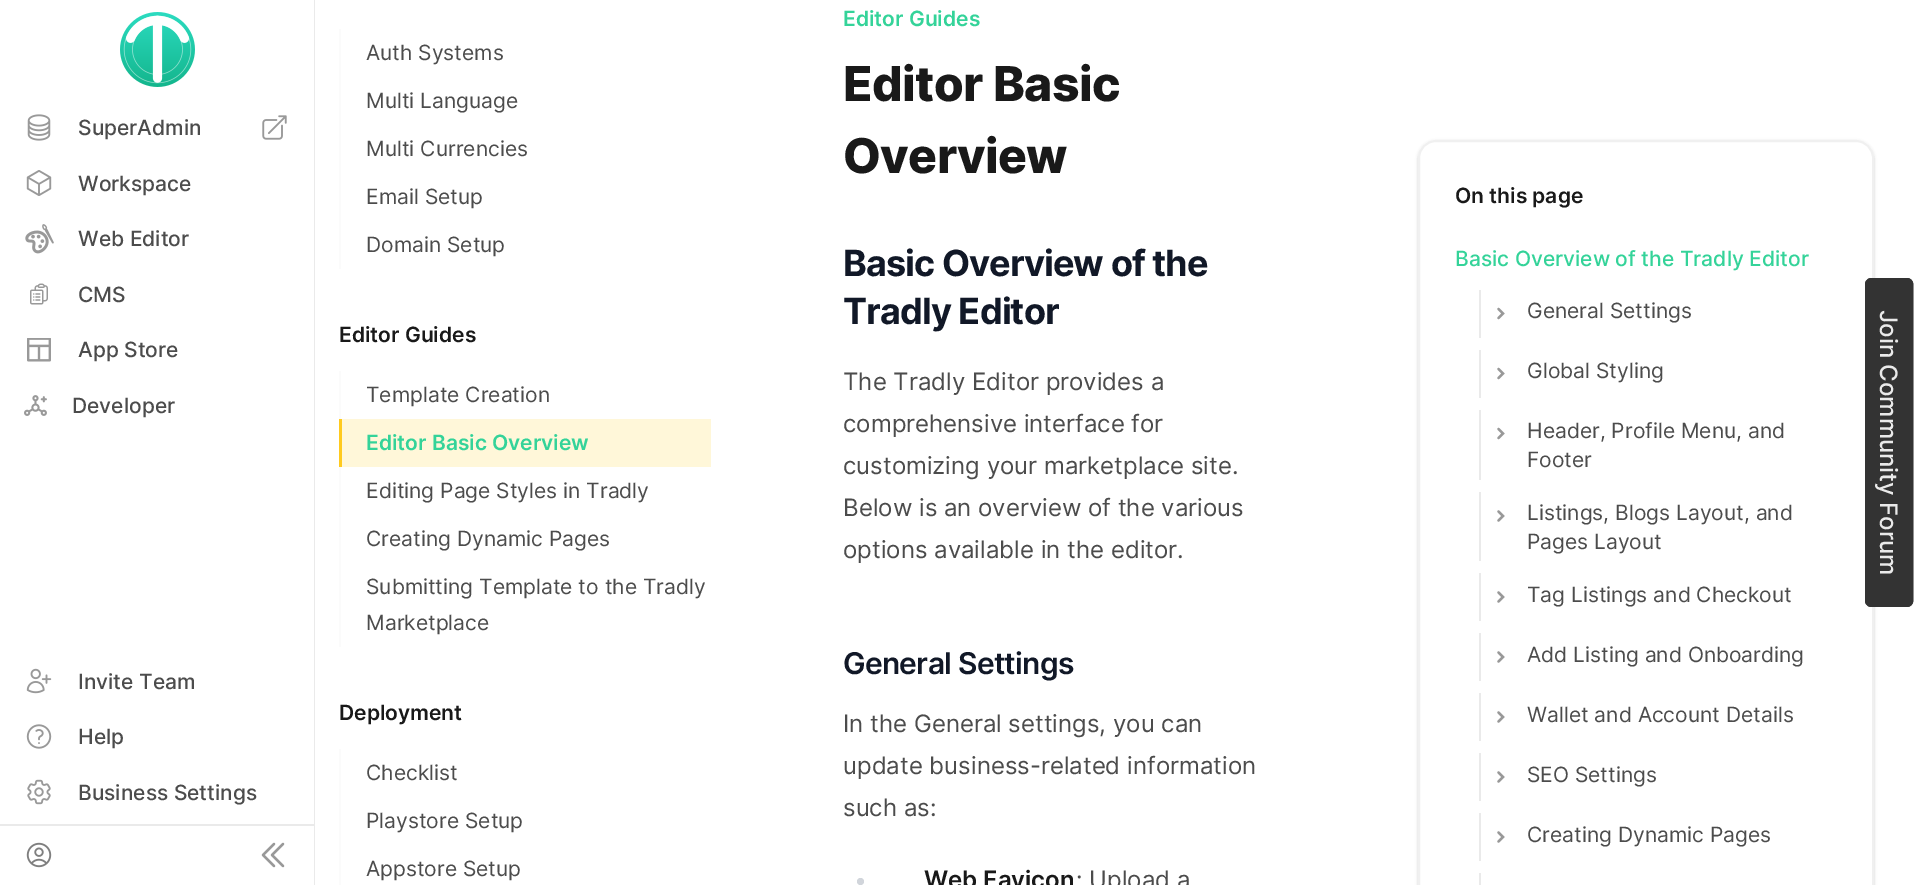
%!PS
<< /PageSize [1921 885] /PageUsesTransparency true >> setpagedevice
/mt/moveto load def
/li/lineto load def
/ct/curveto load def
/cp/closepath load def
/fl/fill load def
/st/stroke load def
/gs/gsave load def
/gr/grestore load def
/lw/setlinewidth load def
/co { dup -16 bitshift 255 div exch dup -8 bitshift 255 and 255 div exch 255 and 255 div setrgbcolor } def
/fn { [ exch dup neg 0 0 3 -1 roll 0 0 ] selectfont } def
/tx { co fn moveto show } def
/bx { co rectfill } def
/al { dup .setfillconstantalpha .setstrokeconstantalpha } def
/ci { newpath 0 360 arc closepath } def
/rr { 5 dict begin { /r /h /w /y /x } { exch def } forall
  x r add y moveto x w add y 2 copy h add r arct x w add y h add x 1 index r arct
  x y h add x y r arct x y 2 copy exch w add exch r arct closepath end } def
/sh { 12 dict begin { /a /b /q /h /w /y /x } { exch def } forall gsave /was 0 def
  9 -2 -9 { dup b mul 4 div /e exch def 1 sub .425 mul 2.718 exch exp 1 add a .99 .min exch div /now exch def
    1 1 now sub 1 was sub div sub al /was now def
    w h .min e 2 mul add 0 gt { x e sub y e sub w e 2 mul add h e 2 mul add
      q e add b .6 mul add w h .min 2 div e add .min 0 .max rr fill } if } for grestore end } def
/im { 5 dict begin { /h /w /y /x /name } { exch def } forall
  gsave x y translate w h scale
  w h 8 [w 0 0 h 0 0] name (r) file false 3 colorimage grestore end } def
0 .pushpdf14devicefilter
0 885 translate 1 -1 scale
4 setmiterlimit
0 0 1921 885 16#FFFFFF bx
314 0 1 885 16#EAEAEA bx
(media/1.raw) 120 12 75 75 im
(media/2.raw) 27 114 24 27 im
(media/3.raw) 262 115 25 25 im
(media/4.raw) 26 170 26 26 im
(media/5.raw) 25 224 29 30 im
(media/6.raw) 30 283 18 22 im
(media/7.raw) 27 338 24 24 im
(media/8.raw) 24 395 23 21 im
(media/9.raw) 26 668 26 26 im
(media/10.raw) 26 724 26 25 im
(media/11.raw) 27 779 24 26 im
0 824 315 2 16#EAEAEA bx
(media/12.raw) 26 842 26 26 im
16#999999 co
2.2 lw
1 setlinecap
1 setlinejoin
283 866 mt 272 855 li 283 844 li 274 866 mt 263 855 li 274 844 li st
339 29 2 240 16#FBFBFB bx
339 371 2 276 16#FBFBFB bx
342 419 369 48 16#FFF7D9 bx
339 419 3 48 16#FFCA1E bx
339 749 2 136 16#FBFBFB bx
16#D1D5DB co
860.5 881.5 3.5 ci fl
gs
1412 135 mt 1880 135 li 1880 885 li 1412 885 li cp 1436 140 mt 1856 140 li 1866 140 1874 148 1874 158 ct 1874 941 li 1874 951 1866 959 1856 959 ct 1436 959 li 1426 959 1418 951 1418 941 ct 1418 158 li 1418 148 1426 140 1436 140 ct cp eoclip newpath
16#000000 co
1418 141 456 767 18 1.5 .16 sh
gr
0.95 al
16#FFFFFF co
1436 140 mt 1856 140 li 1866 140 1874 148 1874 158 ct 1874 885 li 1418 885 li 1418 158 li 1418 148 1426 140 1436 140 ct cp fl
0.7 al
16#EAEAEA co
2 lw
0 setlinecap
0 setlinejoin
1419 141 454 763 17 rr st
1 al
1479 290 2 48 16#EAEAEA bx
16#999999 co
2.2 lw
1 setlinecap
1498.5 309 mt 1503 313.5 li 1498.5 318 li st
1479 350 2 48 16#EAEAEA bx
16#999999 co
1498.5 369 mt 1503 373.5 li 1498.5 378 li st
1479 410 2 70 16#EAEAEA bx
16#999999 co
1498.5 429 mt 1503 433.5 li 1498.5 438 li st
1479 492 2 69 16#EAEAEA bx
16#999999 co
1498.5 511.5 mt 1503 516 li 1498.5 520.5 li st
1479 573 2 48 16#EAEAEA bx
16#999999 co
1498.5 592.5 mt 1503 597 li 1498.5 601.5 li st
1479 633 2 48 16#EAEAEA bx
16#999999 co
1498.5 652.5 mt 1503 657 li 1498.5 661.5 li st
1479 693 2 48 16#EAEAEA bx
16#999999 co
1498.5 712.5 mt 1503 717 li 1498.5 721.5 li st
1479 753 2 48 16#EAEAEA bx
16#999999 co
1498.5 772.5 mt 1503 777 li 1498.5 781.5 li st
1479 813 2 48 16#EAEAEA bx
16#999999 co
1498.5 832.5 mt 1503 837 li 1498.5 841.5 li st
1479 873 2 12 16#EAEAEA bx
16#333333 co
1913 284 mt 1913 601 li 1913 604 1911 607 1907 607 ct 1871 607 li 1868 607 1865 604 1865 601 ct 1865 284 li 1865 281 1868 278 1871 278 ct 1907 278 li 1911 278 1913 281 1913 284 ct cp fl
1.5 lw
0 setlinecap
1912.5 284 mt 1912.5 601 li 1912.5 603.5 1910 606 1907 606 ct 1871 606 li 1868.5 606 1866 603.5 1866 601 ct 1866 284 li 1866 281.5 1868.5 279 1871 279 ct 1907 279 li 1910 279 1912.5 281.5 1912.5 284 ct cp st
(SuperAdmin) 78 135 /Inter-Medium 21 16#4C4C4C tx
(Workspace) 78 191 /Inter-Medium 21 16#4C4C4C tx
(Web Editor) 78 246 /Inter-Medium 21 16#4C4C4C tx
(CMS) 78 302 /Inter-Medium 21 16#4C4C4C tx
(App Store) 78 357 /Inter-Medium 21 16#4C4C4C tx
(Developer) 72 413 /Inter-Medium 21 16#4C4C4C tx
(Invite Team) 78 689 /Inter-Medium 21 16#4C4C4C tx
(Help) 78 744 /Inter-Medium 21 16#4C4C4C tx
(Business Settings) 78 800 /Inter-Medium 21 16#4C4C4C tx
(Auth Systems) 366 60 /Inter-Regular 21 16#4C4C4C tx
(Multi Language) 366 108 /Inter-Regular 21 16#4C4C4C tx
(Multi Currencies) 366 156 /Inter-Regular 21 16#4C4C4C tx
(Email Setup) 366 204 /Inter-Regular 21 16#4C4C4C tx
(Domain Setup) 366 252 /Inter-Regular 21 16#4C4C4C tx
(Editor Guides) 339 342 /Inter-SemiBold 21 16#191919 tx
(Template Creation) 366 402 /Inter-Regular 21 16#4C4C4C tx
(Editor Basic Overview) 366 450 /Inter-SemiBold 21 16#34D399 tx
(Editing Page Styles in Tradly) 366 498 /Inter-Regular 21 16#4C4C4C tx
(Creating Dynamic Pages) 366 546 /Inter-Regular 21 16#4C4C4C tx
(Submitting Template to the Tradly) 366 594 /Inter-Regular 21 16#4C4C4C tx
(Marketplace) 366 630 /Inter-Regular 21 16#4C4C4C tx
(Deployment) 339 720 /Inter-SemiBold 21 16#191919 tx
(Checklist) 366 780 /Inter-Regular 21 16#4C4C4C tx
(Playstore Setup) 366 828 /Inter-Regular 21 16#4C4C4C tx
(Appstore Setup) 366 876 /Inter-Regular 21 16#4C4C4C tx
(Editor Guides) 843 26 /Inter-SemiBold 21 16#34D399 tx
/Inter-ExtraBold 48 fn
16#191919 co
843 101 mt -.5 0 (Editor Basic) ashow
843 173 mt -.5 0 (Overview) ashow
/Inter-Bold 36 fn
16#111827 co
843 276 mt -.9 0 (Basic Overview of the) ashow
843 324 mt -.9 0 (Tradly Editor) ashow
(The Tradly Editor provides a) 843 390 /Inter-Regular 24 16#4C4C4C tx
(comprehensive interface for) 843 432 /Inter-Regular 24 16#4C4C4C tx
(customizing your marketplace site.) 843 474 /Inter-Regular 24 16#4C4C4C tx
(Below is an overview of the various) 843 516 /Inter-Regular 24 16#4C4C4C tx
(options available in the editor.) 843 558 /Inter-Regular 24 16#4C4C4C tx
/Inter-SemiBold 30 fn
16#111827 co
843 674 mt -.75 0 (General Settings) ashow
(In the General settings, you can) 843 732 /Inter-Regular 24 16#4C4C4C tx
(update business-related information) 843 774 /Inter-Regular 24 16#4C4C4C tx
(such as:) 843 816 /Inter-Regular 24 16#4C4C4C tx
(Web Favicon) 924 888 /Inter-SemiBold 24 16#191919 tx
(: Upload a) 1076 888 /Inter-Regular 24 16#4C4C4C tx
(On this page) 1455 203 /Inter-SemiBold 21 16#191919 tx
(Basic Overview of the Tradly Editor) 1455 266 /Inter-Medium 21 16#34D399 tx
(General Settings) 1527 318 /Inter-Regular 21 16#4C4C4C tx
(Global Styling) 1527 378 /Inter-Regular 21 16#4C4C4C tx
(Header, Profile Menu, and) 1527 438 /Inter-Regular 21 16#4C4C4C tx
(Footer) 1527 467 /Inter-Regular 21 16#4C4C4C tx
(Listings, Blogs Layout, and) 1527 520 /Inter-Regular 21 16#4C4C4C tx
(Pages Layout) 1527 549 /Inter-Regular 21 16#4C4C4C tx
(Tag Listings and Checkout) 1527 602 /Inter-Regular 21 16#4C4C4C tx
(Add Listing and Onboarding) 1527 662 /Inter-Regular 21 16#4C4C4C tx
(Wallet and Account Details) 1527 722 /Inter-Regular 21 16#4C4C4C tx
(SEO Settings) 1527 782 /Inter-Regular 21 16#4C4C4C tx
(Creating Dynamic Pages) 1527 842 /Inter-Regular 21 16#4C4C4C tx
/Inter-Medium 24 fn
16#EAEAEA co
gs 1880 310 translate 90 rotate 0 0 mt (Join Community Forum) show gr
.poppdf14devicefilter showpage
